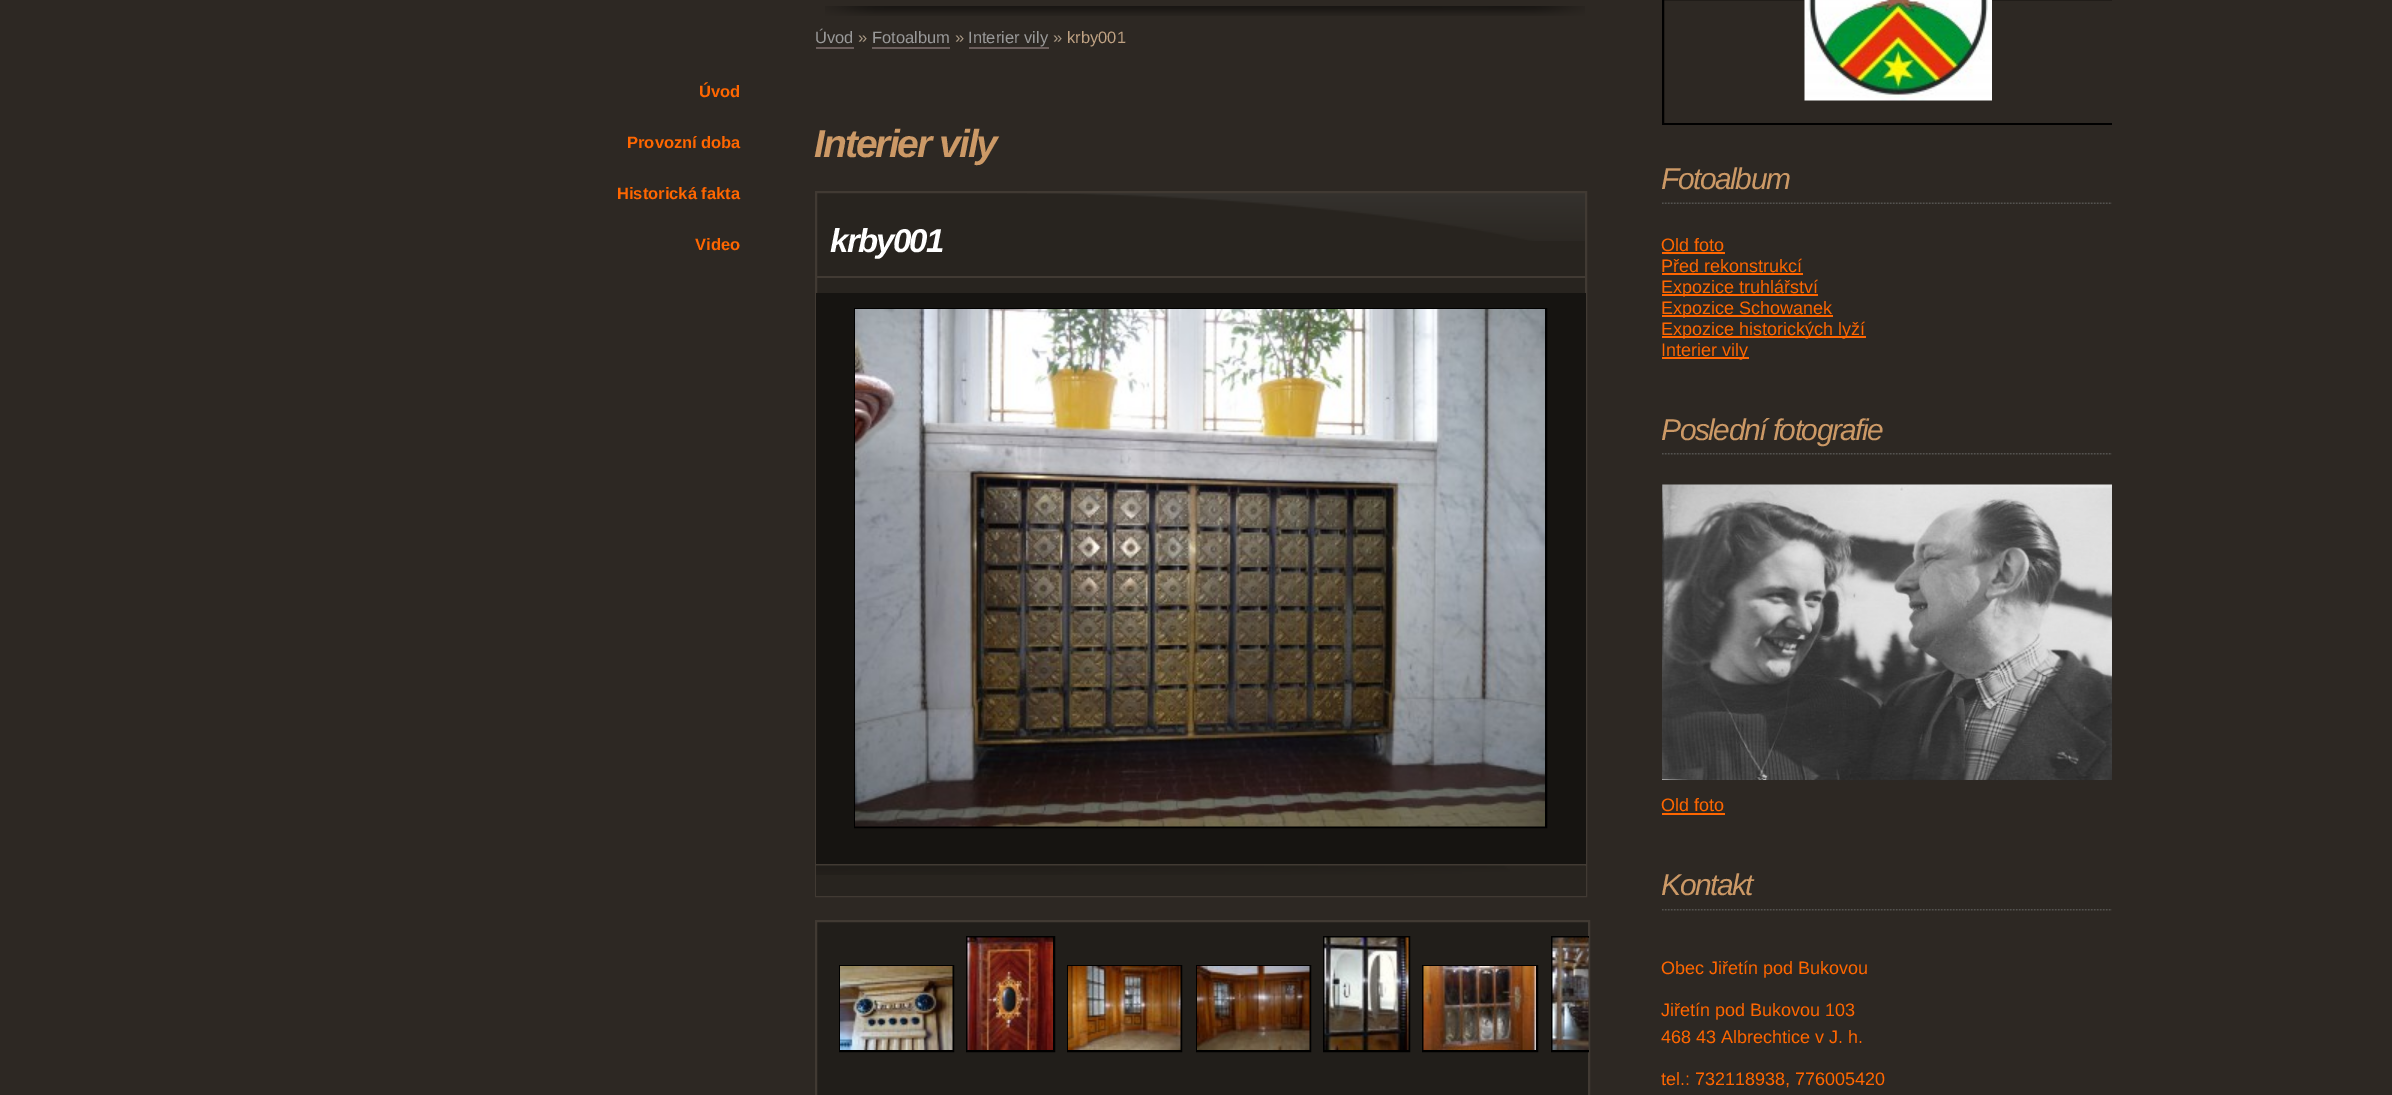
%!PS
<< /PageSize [2392 1095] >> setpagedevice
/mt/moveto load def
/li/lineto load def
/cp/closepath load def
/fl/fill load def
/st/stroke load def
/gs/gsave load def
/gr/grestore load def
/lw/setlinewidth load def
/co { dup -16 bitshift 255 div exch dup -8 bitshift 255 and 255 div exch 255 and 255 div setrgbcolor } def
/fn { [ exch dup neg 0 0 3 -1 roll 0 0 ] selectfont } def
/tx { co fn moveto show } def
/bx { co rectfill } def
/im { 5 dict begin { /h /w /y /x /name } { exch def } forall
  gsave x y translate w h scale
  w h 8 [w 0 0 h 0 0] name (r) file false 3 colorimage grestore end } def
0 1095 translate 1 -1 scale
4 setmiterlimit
0 0 2392 1095 16#2D2823 bx
(media/1.raw) 825 6 760 10 im
816 47 38 2 16#6B5E5C bx
872 47 78 2 16#6B5E5C bx
969 47 80 2 16#6B5E5C bx
817 193 768 100 16#28241F bx
(media/2.raw) 1027 193 558 48 im
16#413A33 co
2 lw
816 192 770 704 rectstroke
816 276 770 2 16#413A33 bx
816 293 770 571 16#161411 bx
816 864 770 2 16#413A33 bx
16#000000 co
855 309 691 518 rectstroke
(media/3.raw) 855 309 690 518 im
816 866 770 30 16#28241F bx
(media/4.raw) 816 865 770 10 im
16#211E1A co
816 921 mt 1589 921 li 1589 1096 li 816 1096 li cp gs fl gr
16#413A33 co
st
16#000000 co
967 937 87 114 rectstroke
1324 937 85 114 rectstroke
gs
816 921 773 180 rectclip
1552 937 63 114 rectstroke
gr
840 966 113 85 rectstroke
(media/5.raw) 967 937 86 113 im
1068 966 113 85 rectstroke
1197 966 113 85 rectstroke
(media/6.raw) 1324 937 85 113 im
1423 966 114 85 rectstroke
(media/7.raw) 1552 937 37 113 im
(media/8.raw) 840 966 113 84 im
(media/9.raw) 1068 966 113 84 im
(media/10.raw) 1197 966 113 84 im
(media/11.raw) 1423 966 113 84 im
gs
1647 0 465 125 rectclip
1663 -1 471 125 rectstroke
gr
(media/12.raw) 1804 0 188 101 im
(media/13.raw) 1662 202 450 2 im
1662 252 63 2 16#FF6600 bx
1662 273 141 2 16#FF6600 bx
1662 294 156 2 16#FF6600 bx
1662 315 171 2 16#FF6600 bx
1662 336 204 2 16#FF6600 bx
1662 357 87 2 16#FF6600 bx
(media/14.raw) 1662 453 450 2 im
(media/15.raw) 1662 484 450 296 im
1662 813 63 2 16#FF6600 bx
(media/14.raw) 1662 909 450 2 im
(Úvod) 699 97 /LiberationSans-Bold 16.5 16#FF6600 tx
(Provozní doba) 627 148 /LiberationSans-Bold 16.5 16#FF6600 tx
(Historická fakta) 617 199 /LiberationSans-Bold 16.5 16#FF6600 tx
(Video) 695 250 /LiberationSans-Bold 16.5 16#FF6600 tx
(Úvod) 815 43 /LiberationSans-Regular 16.5 16#999999 tx
(») 858 43 /LiberationSans-Regular 16.5 16#A99985 tx
(Fotoalbum) 872 43 /LiberationSans-Regular 16.5 16#999999 tx
(») 955 43 /LiberationSans-Regular 16.5 16#A99985 tx
(Interier vily) 968 43 /LiberationSans-Regular 16.5 16#999999 tx
(») 1053 43 /LiberationSans-Regular 16.5 16#A99985 tx
(krby001) 1067 43 /LiberationSans-Regular 16.5 16#BFA283 tx
/LiberationSans-BoldItalic 39 fn
16#CC9966 co
814 157 mt -2 0 (Interier vily) ashow
/LiberationSans-BoldItalic 33 fn
16#FFFFFF co
830 252 mt -1.75 0 (krby001) ashow
/LiberationSans-Italic 30 fn
16#CC9966 co
1661 189 mt -1.5 0 (Fotoalbum) ashow
(Old foto) 1661 251 /LiberationSans-Regular 18 16#FF6600 tx
(Před rekonstrukcí) 1661 272 /LiberationSans-Regular 18 16#FF6600 tx
(Expozice truhlářství) 1661 293 /LiberationSans-Regular 18 16#FF6600 tx
(Expozice Schowanek) 1661 314 /LiberationSans-Regular 18 16#FF6600 tx
(Expozice historických lyží) 1661 335 /LiberationSans-Regular 18 16#FF6600 tx
(Interier vily) 1661 356 /LiberationSans-Regular 18 16#FF6600 tx
/LiberationSans-Italic 30 fn
16#CC9966 co
1661 440 mt -1.5 0 (Poslední fotografie) ashow
(Old foto) 1661 811 /LiberationSans-Regular 18 16#FF6600 tx
/LiberationSans-Italic 30 fn
16#CC9966 co
1661 895 mt -1.5 0 (Kontakt) ashow
(Obec Jiřetín pod Bukovou) 1661 974 /LiberationSans-Regular 18 16#FF6600 tx
(Jiřetín pod Bukovou 103) 1661 1016 /LiberationSans-Regular 18 16#FF6600 tx
(468 43 Albrechtice v J. h.) 1661 1043 /LiberationSans-Regular 18 16#FF6600 tx
(tel.: 732118938, 776005420) 1661 1085 /LiberationSans-Regular 18 16#FF6600 tx
showpage
